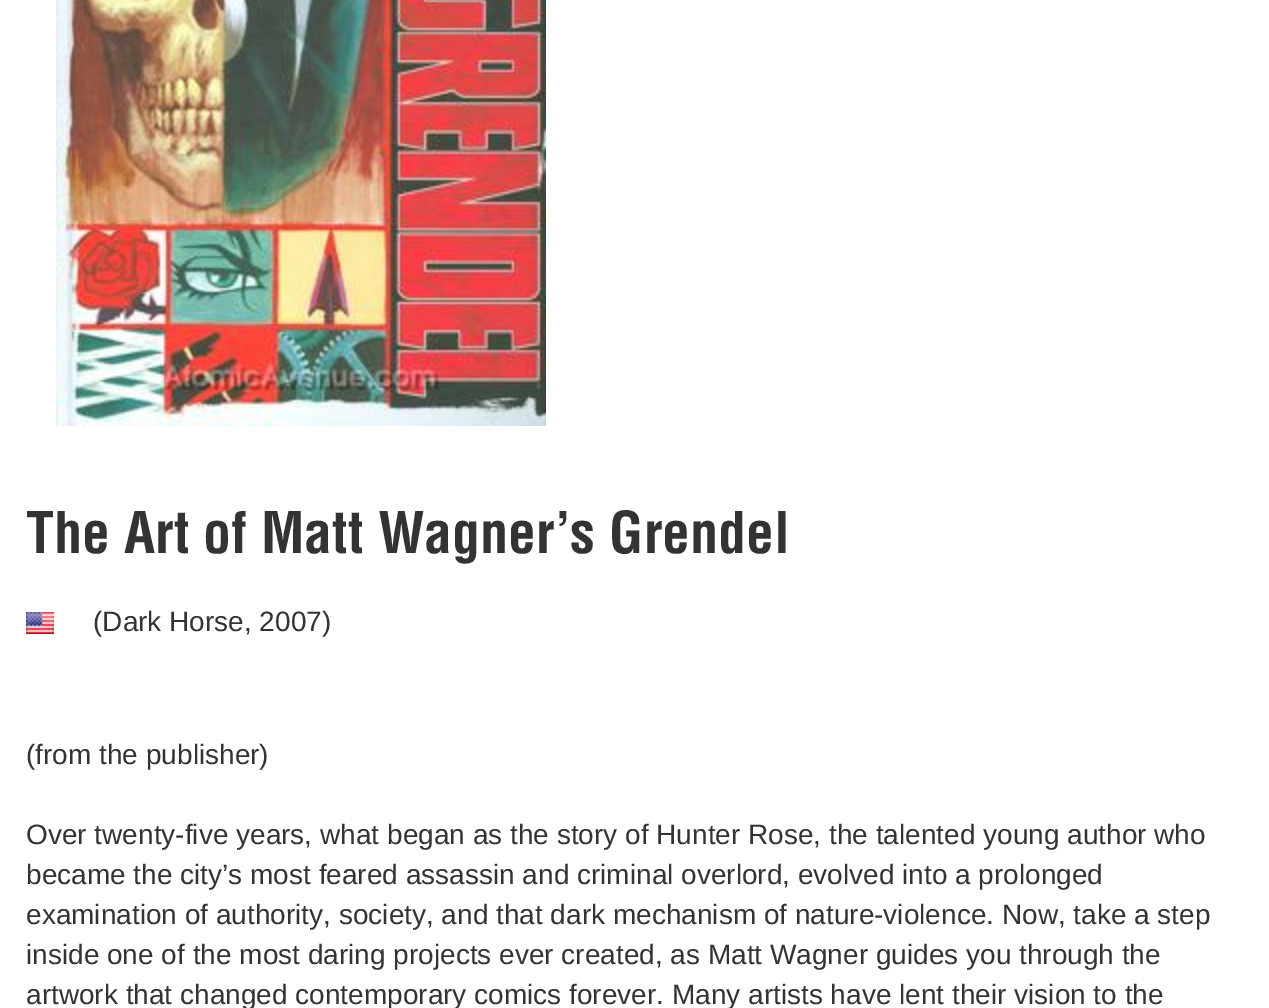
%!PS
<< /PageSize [1269 1008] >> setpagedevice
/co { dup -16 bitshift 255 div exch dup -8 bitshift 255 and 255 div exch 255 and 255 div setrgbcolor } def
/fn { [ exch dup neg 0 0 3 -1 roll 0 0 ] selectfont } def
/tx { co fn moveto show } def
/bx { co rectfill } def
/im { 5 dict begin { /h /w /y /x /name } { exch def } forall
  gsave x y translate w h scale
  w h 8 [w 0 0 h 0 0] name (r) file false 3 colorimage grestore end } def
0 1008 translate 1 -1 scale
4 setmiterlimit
0 0 1269 1008 16#FFFFFF bx
(media/1.raw) 56 0 490 426 im
(media/2.raw) 26 612 28 22 im
(The Art of Matt Wagner’s Grendel) 26 553 /Helvetica-Bold 56 16#333333 tx
(\(Dark Horse, 2007\)) 93 631 /LiberationSans-Regular 28 16#333333 tx
(\(from the publisher\)) 26 764 /LiberationSans-Regular 28 16#333333 tx
(Over twenty-five years, what began as the story of Hunter Rose, the talented young author who) 26 844 /LiberationSans-Regular 28 16#333333 tx
(became the city’s most feared assassin and criminal overlord, evolved into a prolonged) 26 884 /LiberationSans-Regular 28 16#333333 tx
(examination of authority, society, and that dark mechanism of nature-violence. Now, take a step) 26 924 /LiberationSans-Regular 28 16#333333 tx
(inside one of the most daring projects ever created, as Matt Wagner guides you through the) 26 964 /LiberationSans-Regular 28 16#333333 tx
(artwork that changed contemporary comics forever. Many artists have lent their vision to the) 26 1004 /LiberationSans-Regular 28 16#333333 tx
showpage
